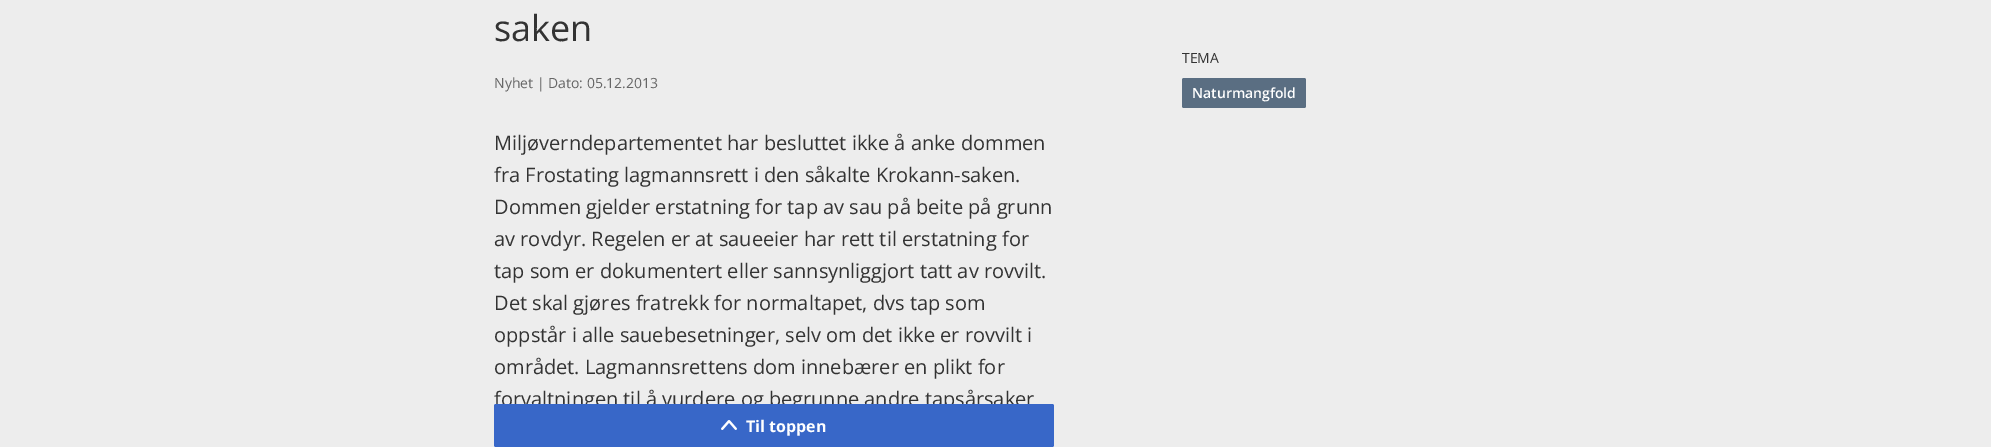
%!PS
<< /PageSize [1991 447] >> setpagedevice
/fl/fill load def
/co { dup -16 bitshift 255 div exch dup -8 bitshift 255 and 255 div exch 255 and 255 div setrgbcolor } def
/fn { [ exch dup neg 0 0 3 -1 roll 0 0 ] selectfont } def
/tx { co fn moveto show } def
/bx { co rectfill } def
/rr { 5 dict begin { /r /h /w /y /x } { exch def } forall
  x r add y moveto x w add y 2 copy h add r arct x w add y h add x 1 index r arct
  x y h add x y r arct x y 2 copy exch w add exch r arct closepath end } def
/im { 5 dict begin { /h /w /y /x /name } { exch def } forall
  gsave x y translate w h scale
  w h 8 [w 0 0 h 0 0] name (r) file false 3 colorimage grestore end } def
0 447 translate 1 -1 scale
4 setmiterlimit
0 0 1991 447 16#EDEDED bx
16#5A6E82 co
1182 78 124 30 2 rr fl
(saken) 494 41 /OpenSans-Regular 36 16#333333 tx
(Nyhet | Dato: 05.12.2013) 494 88 /OpenSans-Regular 14 16#666666 tx
(Miljøverndepartementet har besluttet ikke å anke dommen) 494 150 /OpenSans-Regular 20 16#333333 tx
(fra Frostating lagmannsrett i den såkalte Krokann-saken.) 494 182 /OpenSans-Regular 20 16#333333 tx
(Dommen gjelder erstatning for tap av sau på beite på grunn) 494 214 /OpenSans-Regular 20 16#333333 tx
(av rovdyr. Regelen er at saueeier har rett til erstatning for) 494 246 /OpenSans-Regular 20 16#333333 tx
(tap som er dokumentert eller sannsynliggjort tatt av rovvilt.) 494 278 /OpenSans-Regular 20 16#333333 tx
(Det skal gjøres fratrekk for normaltapet, dvs tap som) 494 310 /OpenSans-Regular 20 16#333333 tx
(oppstår i alle sauebesetninger, selv om det ikke er rovvilt i) 494 342 /OpenSans-Regular 20 16#333333 tx
(området. Lagmannsrettens dom innebærer en plikt for) 494 374 /OpenSans-Regular 20 16#333333 tx
(forvaltningen til å vurdere og begrunne andre tapsårsaker) 494 406 /OpenSans-Regular 20 16#333333 tx
(TEMA) 1182 63 /OpenSans-Regular 14 16#333333 tx
(Naturmangfold) 1192 98 /OpenSans-SemiBold 14 16#FFFFFF tx
16#3867C8 co
494 404 560 43 2 rr fl
(media/1.raw) 721 420 16 10 im
(Til toppen) 746 432 /OpenSans-Bold 16 16#FFFFFF tx
showpage
